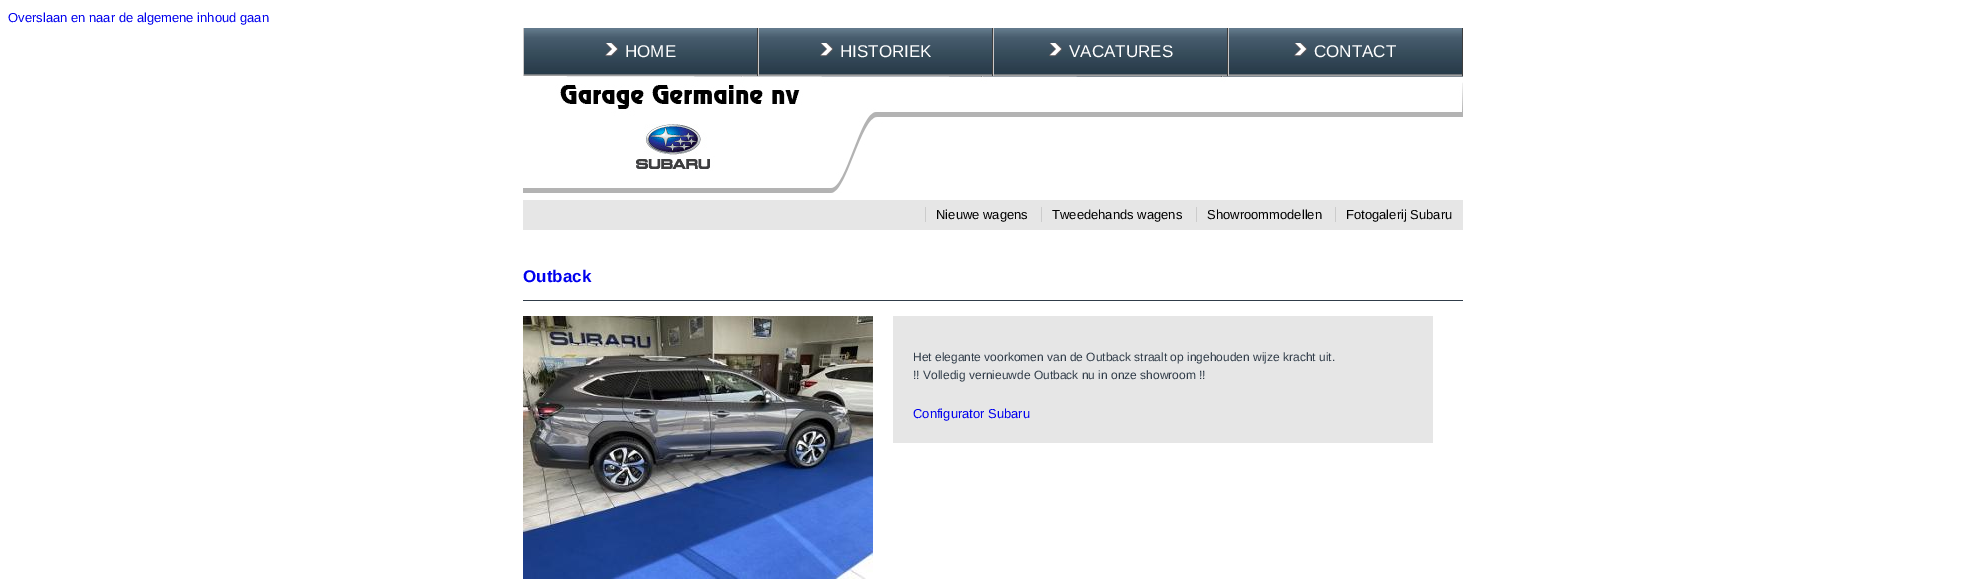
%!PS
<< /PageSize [1985 583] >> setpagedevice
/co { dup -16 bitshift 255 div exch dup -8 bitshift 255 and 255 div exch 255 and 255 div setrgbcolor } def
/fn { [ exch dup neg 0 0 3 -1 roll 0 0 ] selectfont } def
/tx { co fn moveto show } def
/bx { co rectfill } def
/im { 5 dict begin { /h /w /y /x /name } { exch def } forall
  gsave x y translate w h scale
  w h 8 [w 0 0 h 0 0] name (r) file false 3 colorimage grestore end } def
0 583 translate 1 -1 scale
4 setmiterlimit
0 0 1985 583 16#FFFFFF bx
(media/1.raw) 524 28 938 48 im
757 28 1 48 16#3D3D3D bx
523 28 1 48 16#CAC8C8 bx
(media/2.raw) 605 43 13 14 im
992 28 1 48 16#3D3D3D bx
758 28 1 48 16#CAC8C8 bx
(media/2.raw) 820 43 13 14 im
1227 28 1 48 16#3D3D3D bx
993 28 1 48 16#CAC8C8 bx
(media/2.raw) 1049 43 13 14 im
1462 28 1 48 16#3D3D3D bx
1228 28 1 48 16#CAC8C8 bx
(media/2.raw) 1294 43 13 14 im
(media/3.raw) 523 76 940 117 im
523 200 940 30 16#E6E6E6 bx
925 207 1 15 16#CCCCCC bx
1041 207 1 15 16#CCCCCC bx
1196 207 1 15 16#CCCCCC bx
1335 207 1 15 16#CCCCCC bx
523 300 940 1 16#303C49 bx
(media/4.raw) 523 316 350 263 im
893 316 540 127 16#E6E6E6 bx
(Overslaan en naar de algemene inhoud gaan) 8 22 /LiberationSans-Regular 13 16#0000EE tx
(HOME) 625 57 /LiberationSans-Regular 17 16#FFFFFF tx
(HISTORIEK) 840 57 /LiberationSans-Regular 17 16#FFFFFF tx
(VACATURES) 1069 57 /LiberationSans-Regular 17 16#FFFFFF tx
(CONTACT) 1314 57 /LiberationSans-Regular 17 16#FFFFFF tx
(Nieuwe wagens) 936 219 /LiberationSans-Regular 13 16#000000 tx
(Tweedehands wagens) 1052 219 /LiberationSans-Regular 13 16#000000 tx
(Showroommodellen) 1207 219 /LiberationSans-Regular 13 16#000000 tx
(Fotogalerij Subaru) 1346 219 /LiberationSans-Regular 13 16#000000 tx
(Outback) 523 282 /LiberationSans-Bold 17 16#0000EE tx
(Het elegante voorkomen van de Outback straalt op ingehouden wijze kracht uit.) 913 361 /LiberationSans-Regular 12 16#303C49 tx
(!! Volledig vernieuwde Outback nu in onze showroom !!) 913 379 /LiberationSans-Regular 12 16#303C49 tx
(Configurator Subaru) 913 418 /LiberationSans-Regular 13 16#0000EE tx
showpage
